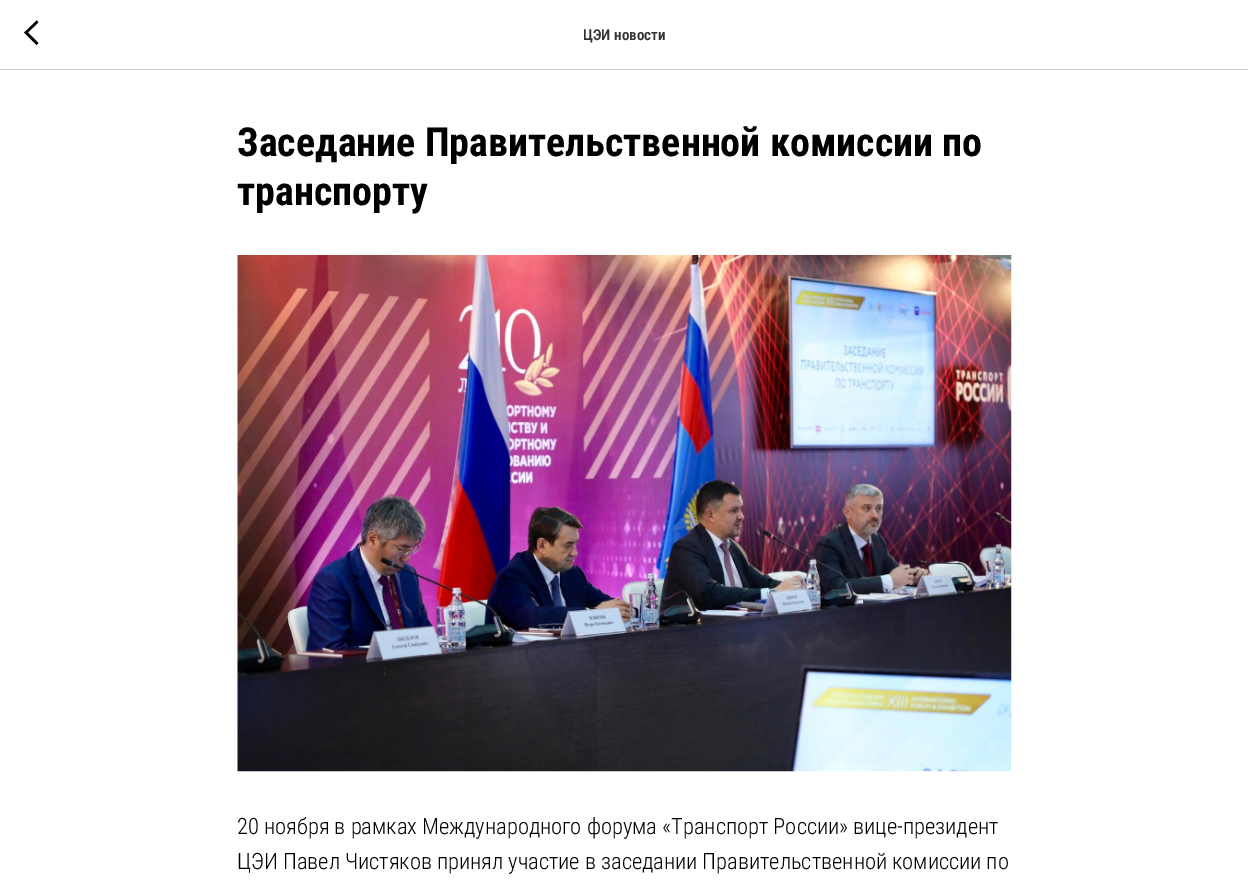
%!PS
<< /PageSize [1248 892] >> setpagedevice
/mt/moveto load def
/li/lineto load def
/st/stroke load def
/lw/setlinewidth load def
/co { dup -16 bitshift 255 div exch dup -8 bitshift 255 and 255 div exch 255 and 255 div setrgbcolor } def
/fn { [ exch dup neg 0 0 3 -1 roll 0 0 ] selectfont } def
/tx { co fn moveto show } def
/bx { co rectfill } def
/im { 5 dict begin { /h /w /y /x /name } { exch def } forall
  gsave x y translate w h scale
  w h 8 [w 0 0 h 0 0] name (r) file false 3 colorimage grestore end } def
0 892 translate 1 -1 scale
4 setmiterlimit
0 0 1248 892 16#FFFFFF bx
0 69 1248 1 16#CCCCCC bx
16#000000 co
2.5 lw
37.5 44 mt 26 32.5 li 37.5 21.5 li st
(media/1.raw) 237 255 775 517 im
(ЦЭИ новости) 583 40 /RobotoCondensed-SemiBold 15 16#333333 tx
(Заседание Правительственной комиссии по) 237 156 /RobotoCondensed-Bold 40 16#000000 tx
(транспорту) 237 205 /RobotoCondensed-Bold 40 16#000000 tx
(20 ноября в рамках Международного форума «Транспорт России» вице-президент) 237 834 /RobotoCondensed-Light 22.5 16#000000 tx
(ЦЭИ Павел Чистяков принял участие в заседании Правительственной комиссии по) 237 869 /RobotoCondensed-Light 22.5 16#000000 tx
showpage
